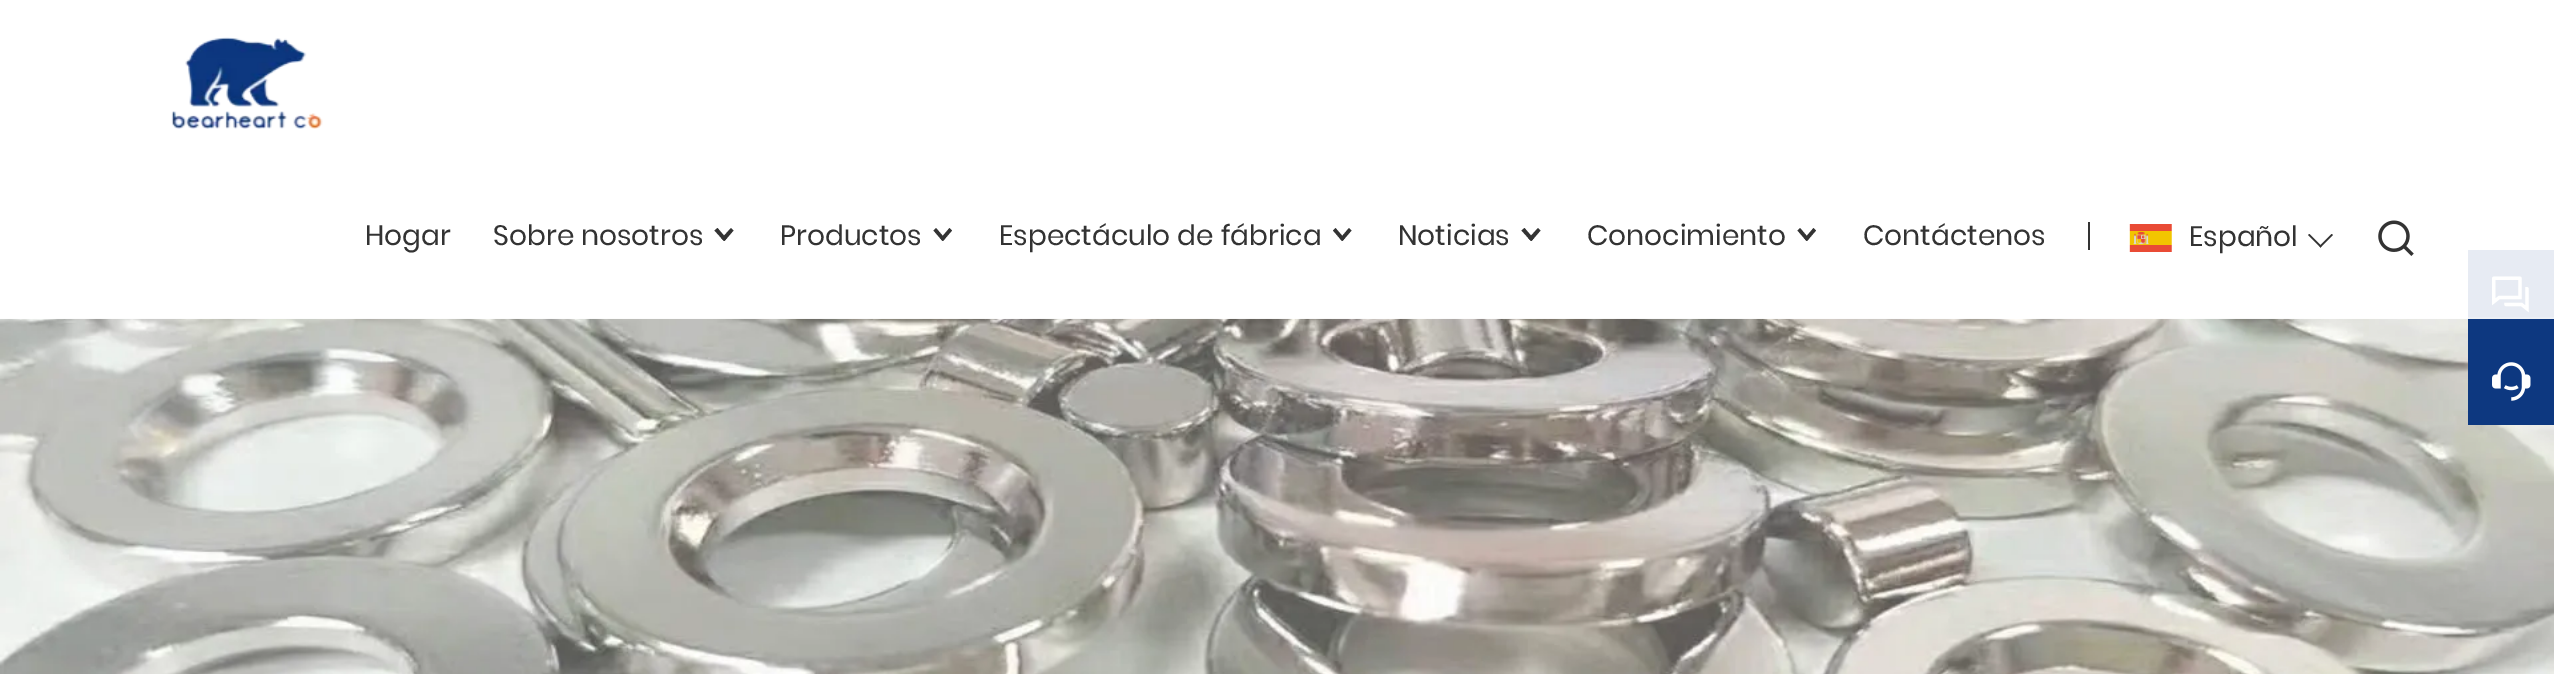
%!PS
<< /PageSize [2554 674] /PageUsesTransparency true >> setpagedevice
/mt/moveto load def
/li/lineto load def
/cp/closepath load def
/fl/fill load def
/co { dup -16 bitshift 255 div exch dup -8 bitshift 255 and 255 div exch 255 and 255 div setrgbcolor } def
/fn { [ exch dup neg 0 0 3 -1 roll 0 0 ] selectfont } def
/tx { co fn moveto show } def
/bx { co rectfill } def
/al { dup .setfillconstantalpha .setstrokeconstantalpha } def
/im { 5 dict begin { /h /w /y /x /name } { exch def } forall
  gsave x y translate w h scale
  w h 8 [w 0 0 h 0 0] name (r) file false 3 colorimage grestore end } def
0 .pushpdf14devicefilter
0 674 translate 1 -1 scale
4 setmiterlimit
0 0 2554 674 16#FFFFFF bx
(media/6.raw) 0 318 2554 356 im
2468 250 86 175 16#0D3880 bx
(media/4.raw) 2492 276 37 37 im
0.9 al
0 250 2554 69 16#FFFFFF bx
0.2 al
2468 317 86 2 16#FFFFFF bx
1 al
(media/1.raw) 171 37 152 92 im
16#333333 co
717.5 228 mt 726.5 238.5 li 724 241 li 714.5 230.5 li cp fl
721.5 238.5 mt 731 228 li 733.5 230.5 li 724.5 241 li cp fl
936 228 mt 945 238.5 li 942.5 241 li 933.5 230.5 li cp fl
940.5 238.5 mt 949.5 228 li 952 230.5 li 943 241 li cp fl
1335.5 228 mt 1344.5 238.5 li 1342 241 li 1333 230.5 li cp fl
1340 238.5 mt 1349 228 li 1351.5 230.5 li 1342.5 241 li cp fl
1524.5 228 mt 1533.5 238.5 li 1531 241 li 1521.5 230.5 li cp fl
1528.5 238.5 mt 1538 228 li 1540.5 230.5 li 1531.5 241 li cp fl
1800 228 mt 1809 238.5 li 1806.5 241 li 1797.5 230.5 li cp fl
1804.5 238.5 mt 1813.5 228 li 1816 230.5 li 1807 241 li cp fl
2088 222 2 28 16#333333 bx
(media/2.raw) 2129 224 43 28 im
2333 235 mt 2320.5 247.5 li 2319.5 246 li 2331.5 234 li cp fl
2321.5 246 mt 2320.5 247.5 li 2308 235 li 2309.5 234 li cp fl
(media/3.raw) 2378 220 36 36 im
(media/5.raw) 2492 362 39 39 im
(Hogar) 365 245 /Poppins-Regular 28 16#333333 tx
(Sobre nosotros) 493 245 /Poppins-Regular 28 16#333333 tx
(Productos) 780 245 /Poppins-Regular 28 16#333333 tx
(Espectáculo de fábrica) 999 245 /Poppins-Regular 28 16#333333 tx
(Noticias) 1398 245 /Poppins-Regular 28 16#333333 tx
(Conocimiento) 1587 245 /Poppins-Regular 28 16#333333 tx
(Contáctenos) 1863 245 /Poppins-Regular 28 16#333333 tx
(Español) 2189 246 /Poppins-Regular 28 16#333333 tx
.poppdf14devicefilter showpage
